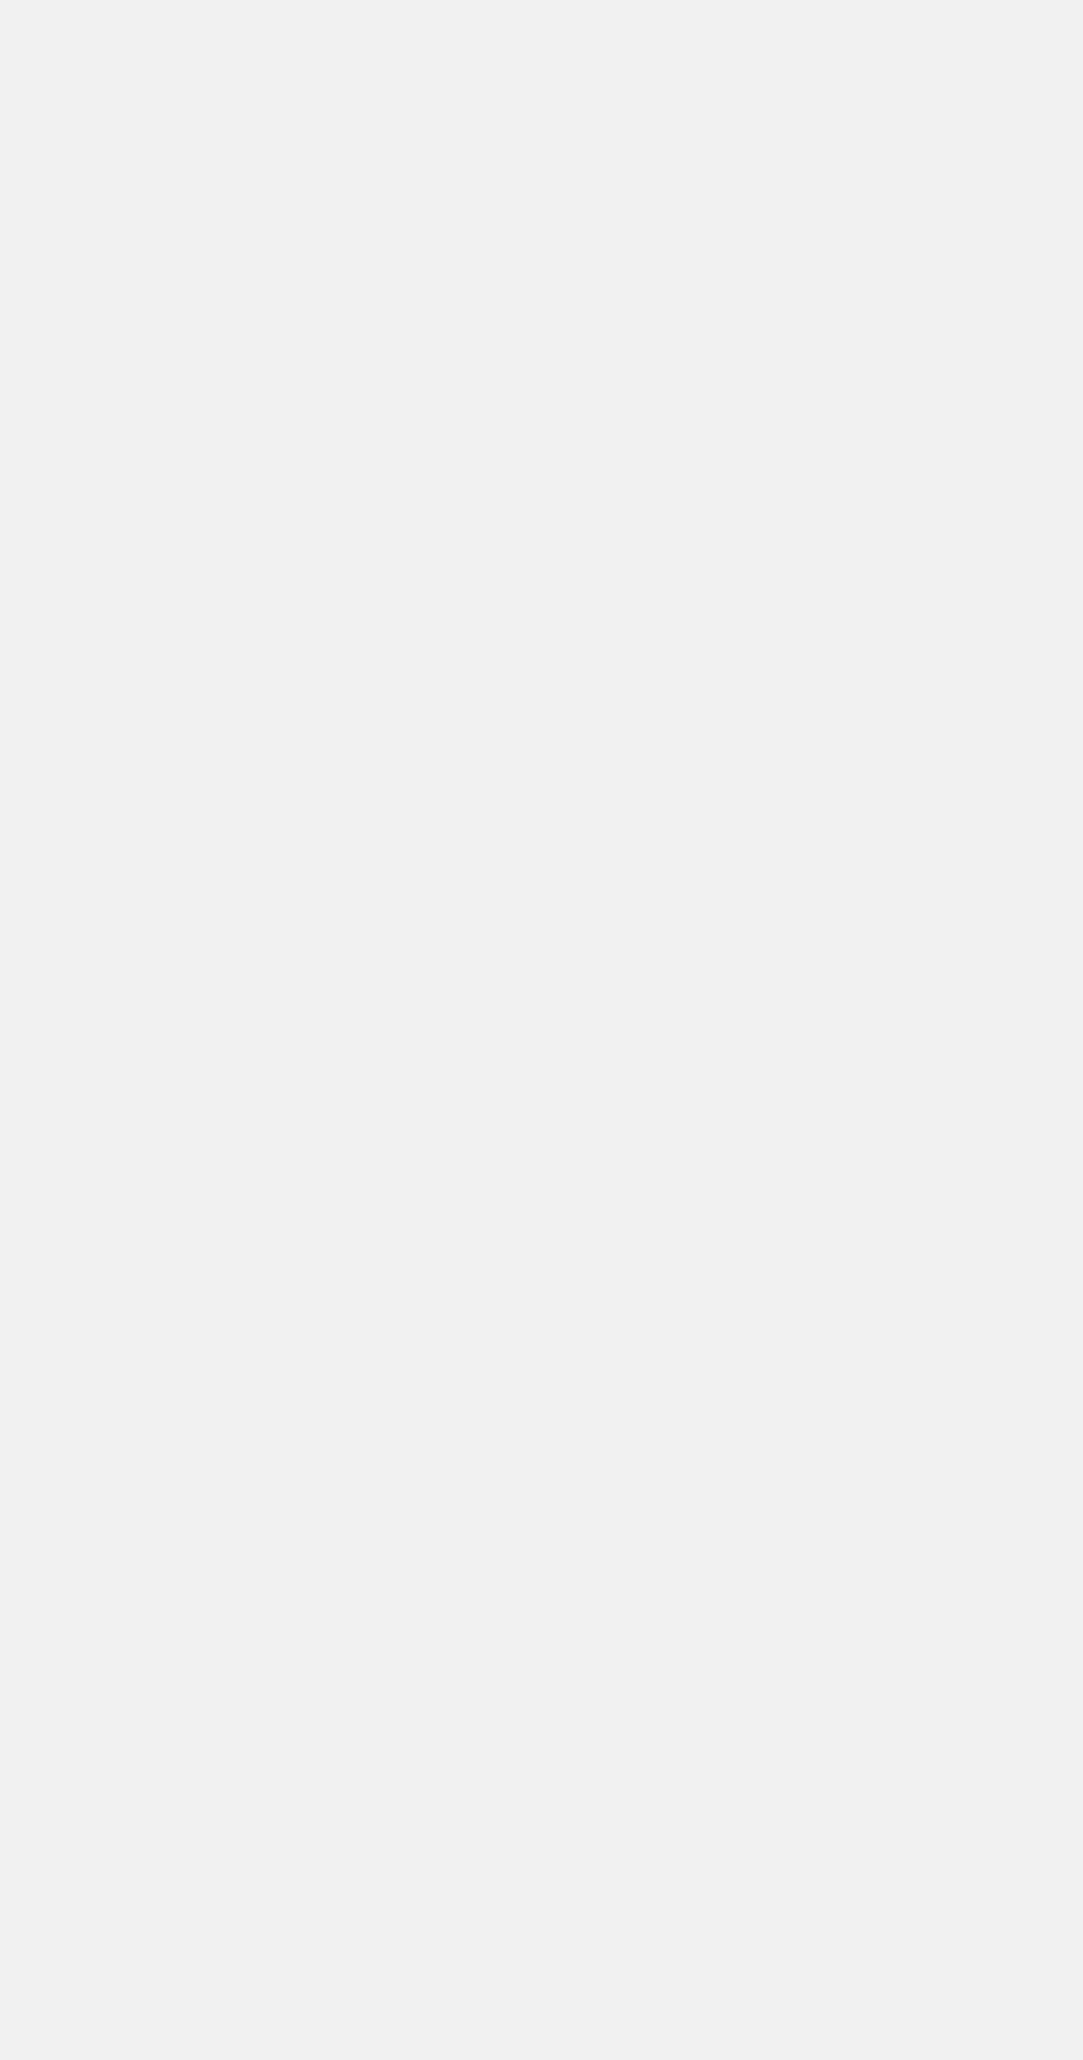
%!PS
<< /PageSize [1083 2060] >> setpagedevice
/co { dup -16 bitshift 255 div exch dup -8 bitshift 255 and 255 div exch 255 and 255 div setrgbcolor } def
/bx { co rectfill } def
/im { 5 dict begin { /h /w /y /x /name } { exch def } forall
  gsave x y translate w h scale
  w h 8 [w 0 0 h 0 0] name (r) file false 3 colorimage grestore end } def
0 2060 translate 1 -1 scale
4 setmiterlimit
0 0 1083 2060 16#F1F1F1 bx
(media/1.raw) 142 50 800 102 im
(media/2.raw) 274 226 12 8 im
(media/3.raw) 393 226 12 9 im
(media/4.raw) 564 226 12 8 im
(media/5.raw) 685 226 12 8 im
(media/6.raw) 764 226 12 8 im
(media/2.raw) 854 226 12 8 im
(media/7.raw) 964 223 15 16 im
(media/8.raw) 142 1246 799 102 im
showpage
